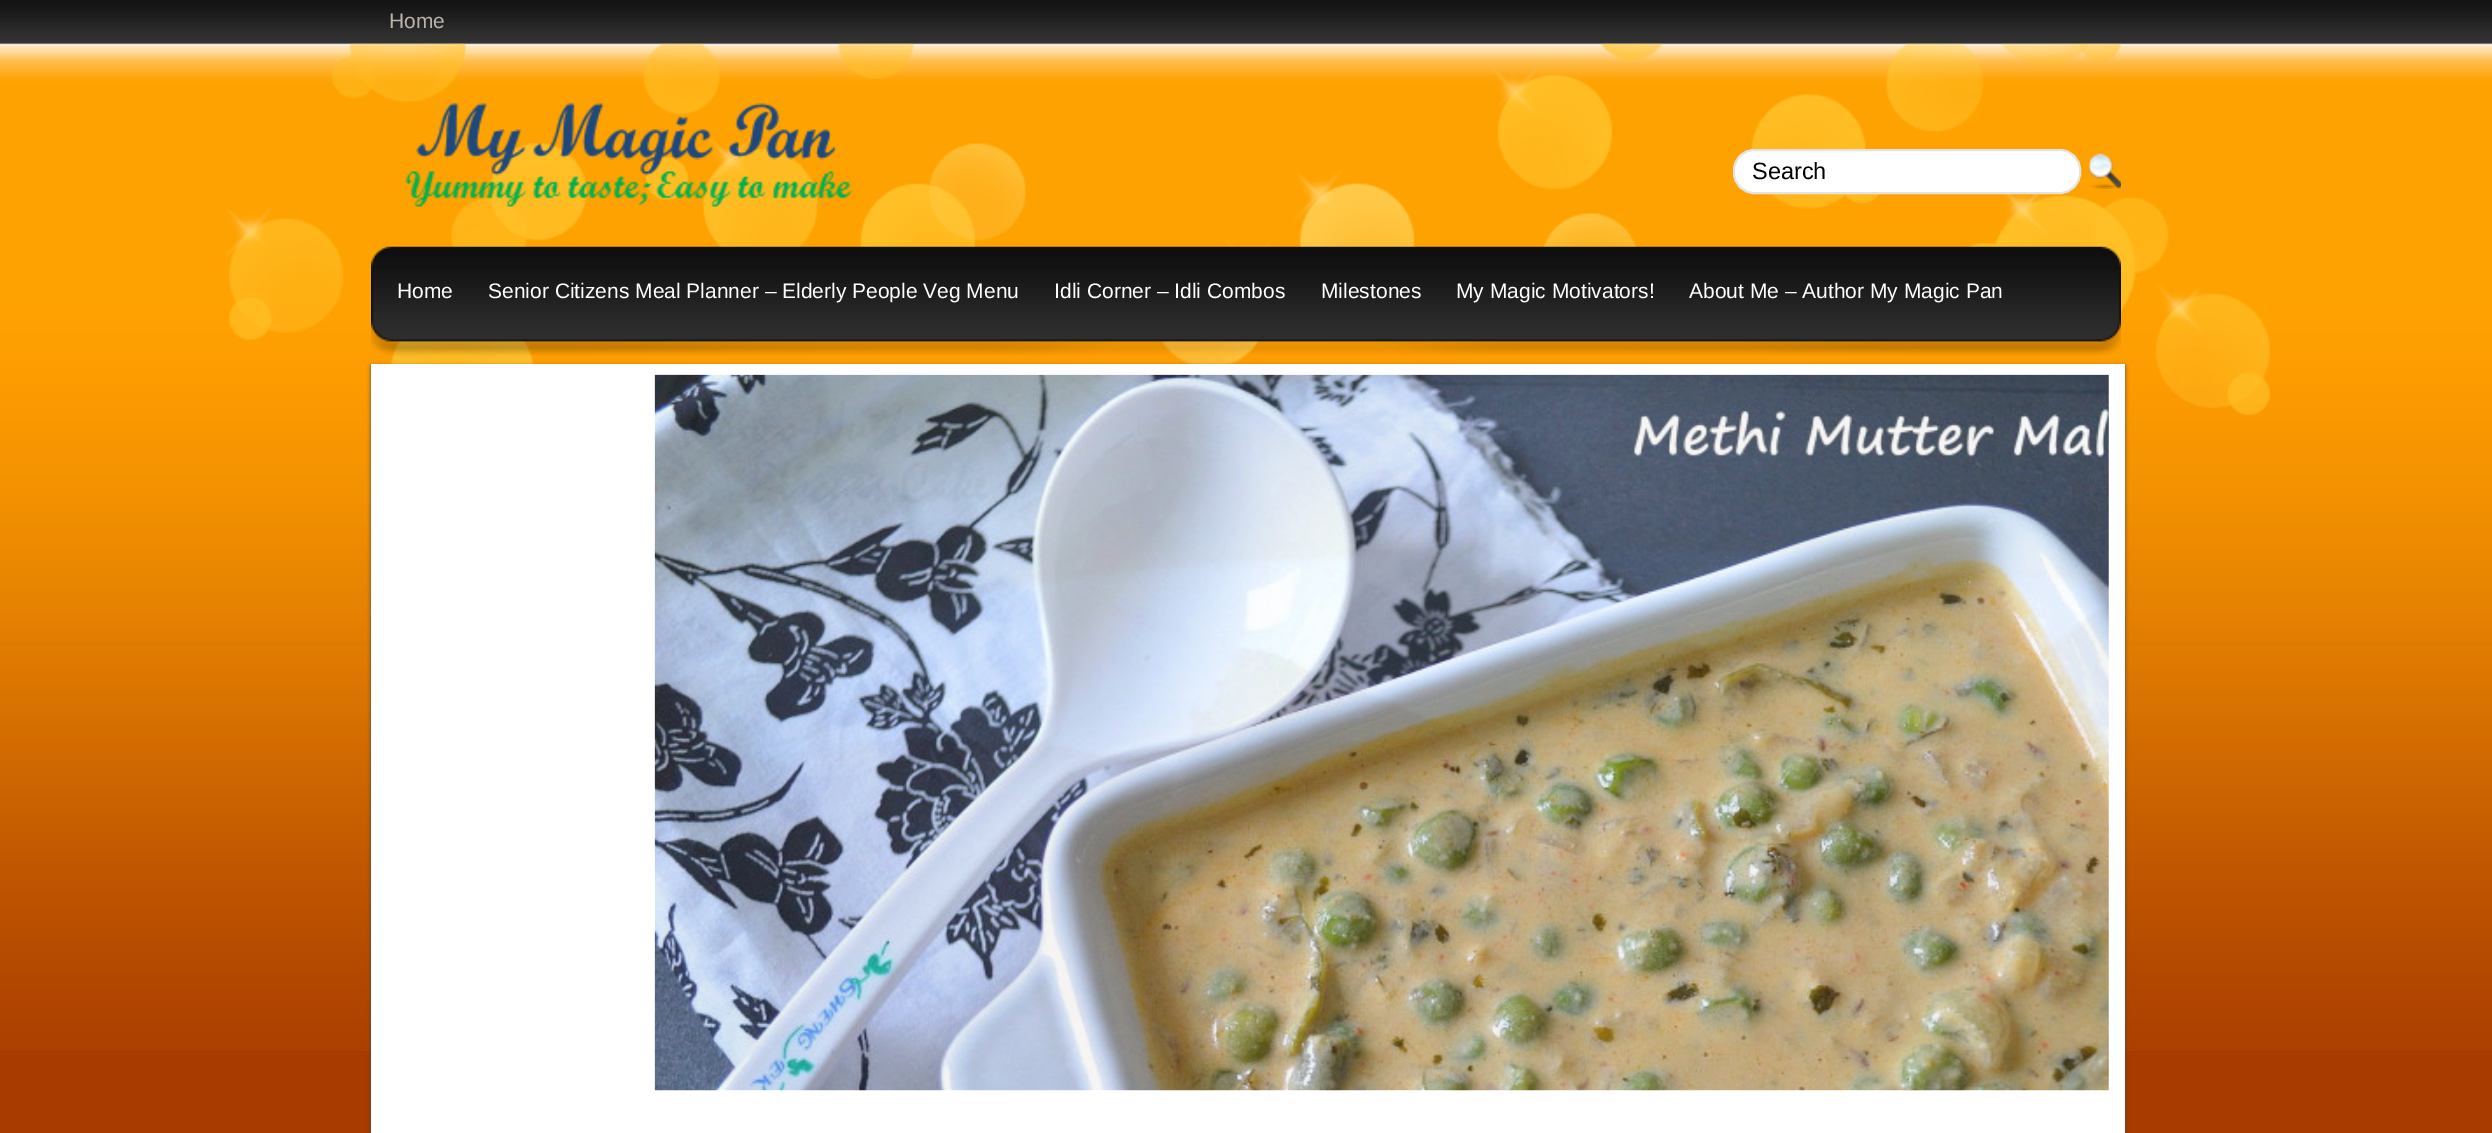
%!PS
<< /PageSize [2492 1133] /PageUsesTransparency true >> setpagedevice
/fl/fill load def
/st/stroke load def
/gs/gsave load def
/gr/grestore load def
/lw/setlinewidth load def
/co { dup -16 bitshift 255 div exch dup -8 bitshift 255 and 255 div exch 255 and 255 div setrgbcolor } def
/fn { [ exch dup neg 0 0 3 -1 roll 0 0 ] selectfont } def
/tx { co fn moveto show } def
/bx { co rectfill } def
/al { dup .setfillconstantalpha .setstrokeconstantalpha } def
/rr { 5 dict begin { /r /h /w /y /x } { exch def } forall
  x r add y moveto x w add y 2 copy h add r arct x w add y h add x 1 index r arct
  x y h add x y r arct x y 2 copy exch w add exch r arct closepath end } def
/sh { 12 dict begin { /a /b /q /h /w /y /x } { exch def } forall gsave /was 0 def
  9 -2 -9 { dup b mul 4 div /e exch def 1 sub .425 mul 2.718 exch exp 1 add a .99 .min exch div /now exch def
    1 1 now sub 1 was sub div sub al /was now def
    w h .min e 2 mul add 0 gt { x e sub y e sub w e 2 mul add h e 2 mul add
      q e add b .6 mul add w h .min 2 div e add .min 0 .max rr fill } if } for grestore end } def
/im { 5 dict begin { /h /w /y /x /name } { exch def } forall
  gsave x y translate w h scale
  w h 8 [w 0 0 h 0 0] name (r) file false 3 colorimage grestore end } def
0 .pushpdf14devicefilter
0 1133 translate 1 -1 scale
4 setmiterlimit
0 0 2492 1133 16#A83B00 bx
(media/1.raw) 0 0 2492 1051 im
(media/2.raw) 225 43 2045 373 im
(media/3.raw) 405 102 448 105 im
16#FFFFFF co
1734 150 346 43 20 rr gs fl gr
16#E3E3E3 co
2 lw
st
(media/4.raw) 2089 153 32 36 im
(media/5.raw) 371 246 1750 110 im
16#444444 co
371 366 1754 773 0 2 1 sh
371 364 1754 769 16#FFFFFF bx
(media/6.raw) 654 374 1455 717 im
(media/7.raw) 655 375 1454 715 im
(Home) 389 28 /LiberationSans-Regular 21 16#BCB3AA tx
(Search) 1752 179 /LiberationSans-Regular 23.5 16#000000 tx
(Home) 397 298 /LiberationSans-Regular 21 16#FFFFFF tx
(Senior Citizens Meal Planner – Elderly People Veg Menu) 488 298 /LiberationSans-Regular 21 16#FFFFFF tx
(Idli Corner – Idli Combos) 1054 298 /LiberationSans-Regular 21 16#FFFFFF tx
(Milestones) 1321 298 /LiberationSans-Regular 21 16#FFFFFF tx
(My Magic Motivators!) 1456 298 /LiberationSans-Regular 21 16#FFFFFF tx
(About Me – Author My Magic Pan) 1689 298 /LiberationSans-Regular 21 16#FFFFFF tx
.poppdf14devicefilter showpage
